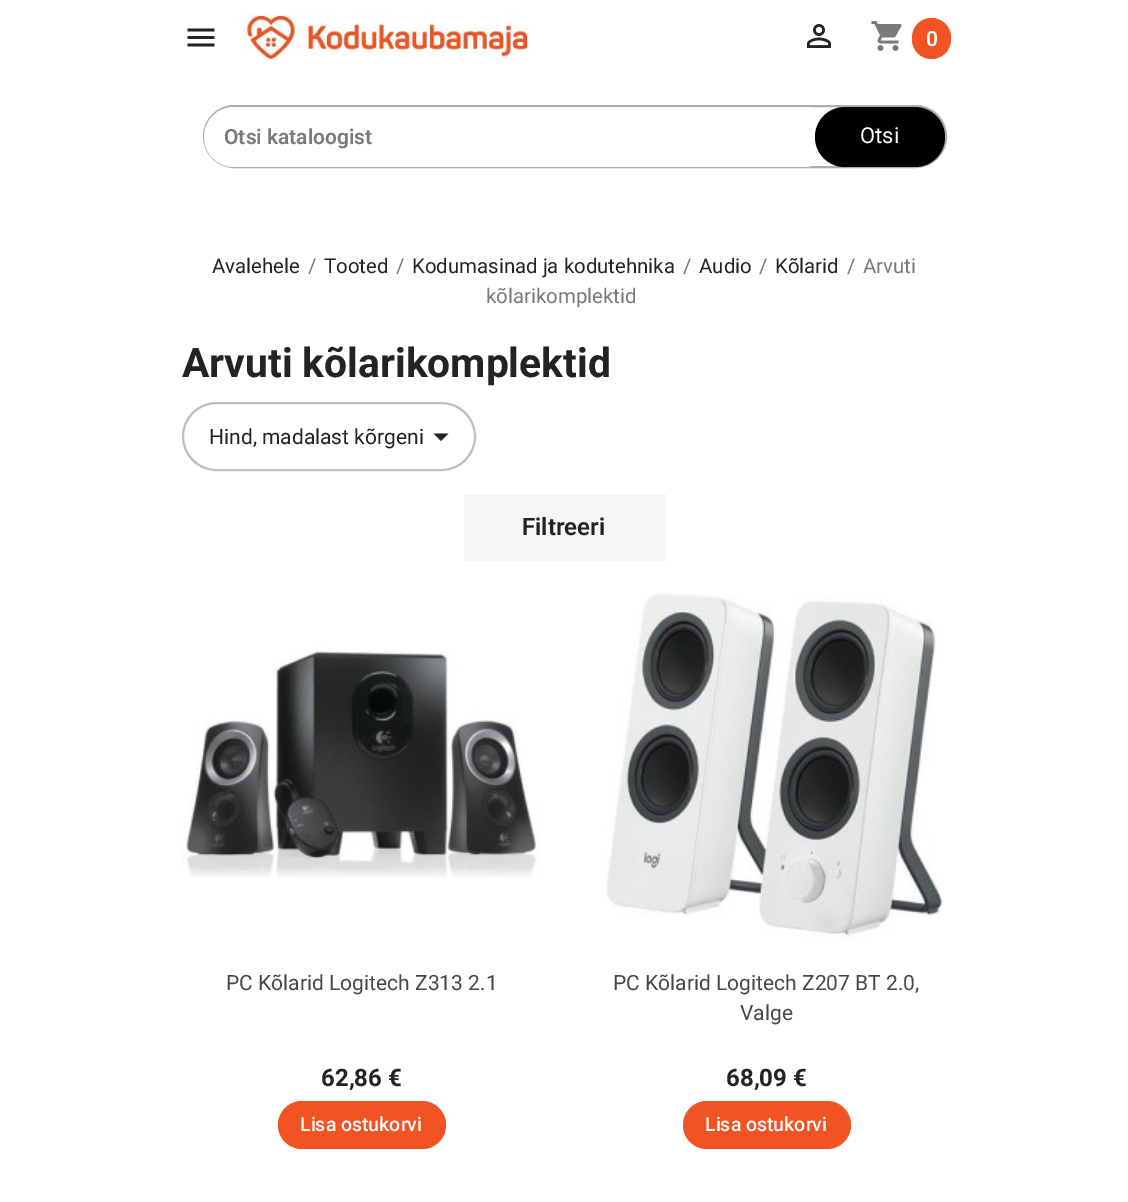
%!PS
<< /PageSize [1128 1202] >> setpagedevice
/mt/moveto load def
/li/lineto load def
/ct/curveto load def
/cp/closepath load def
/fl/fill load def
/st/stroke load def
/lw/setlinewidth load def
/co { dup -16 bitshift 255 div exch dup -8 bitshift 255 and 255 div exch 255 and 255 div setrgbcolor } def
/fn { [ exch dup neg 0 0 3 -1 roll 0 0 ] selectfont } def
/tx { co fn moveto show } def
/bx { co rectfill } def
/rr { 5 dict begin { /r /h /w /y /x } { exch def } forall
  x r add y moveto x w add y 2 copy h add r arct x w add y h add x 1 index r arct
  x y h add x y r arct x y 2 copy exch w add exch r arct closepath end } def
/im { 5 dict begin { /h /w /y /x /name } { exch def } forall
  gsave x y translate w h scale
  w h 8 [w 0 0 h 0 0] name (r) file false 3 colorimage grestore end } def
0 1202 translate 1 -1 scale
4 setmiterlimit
0 0 1128 1202 16#FFFFFF bx
(media/1.raw) 187 28 28 19 im
(media/2.raw) 243 13 287 49 im
(media/3.raw) 806 24 26 24 im
(media/4.raw) 871 21 31 30 im
16#F15323 co
912 18 39 41 19.5 rr fl
16#ACACAC co
2 lw
204 106 742 61 30.5 rr st
16#FFFFFF co
234 107 mt 807 107 li 811.5 107 815 110.5 815 115 ct 815 159 li 815 163.5 811.5 167 807 167 ct 234 167 li 217.5 167 204 153.5 204 137 ct 204 120.5 217.5 107 234 107 ct cp fl
16#000000 co
815 107 130 60 30 rr fl
16#BFBFBF co
183 403 292 67 33.5 rr st
16#232323 co
433.5 433.5 mt 448.5 433.5 li 441 441 li cp fl
464 494 202 67 16#F6F6F6 bx
(media/5.raw) 182 647 358 231 im
16#F15323 co
278 1101 168 48 24 rr fl
(media/6.raw) 606 593 338 346 im
683 1101 168 48 24 rr fl
(0) 926 46 /Roboto-SemiBold 21 16#FFFFFF tx
(Otsi kataloogist) 224 144 /Roboto-SemiBold 21 16#7A7A7A tx
(Otsi) 860 143 /Roboto-Regular 22 16#FFFFFF tx
(Avalehele) 212 273 /Roboto-Regular 20.4 16#232323 tx
(/) 308 273 /Roboto-Regular 20.4 16#7A7A7A tx
(Tooted) 324 273 /Roboto-Regular 20.4 16#232323 tx
(/) 396 273 /Roboto-Regular 20.4 16#7A7A7A tx
(Kodumasinad ja kodutehnika) 412 273 /Roboto-Regular 20.4 16#232323 tx
(/) 683 273 /Roboto-Regular 20.4 16#7A7A7A tx
(Audio) 699 273 /Roboto-Regular 20.4 16#232323 tx
(/) 759 273 /Roboto-Regular 20.4 16#7A7A7A tx
(Kõlarid) 775 273 /Roboto-Regular 20.4 16#232323 tx
(/) 847 273 /Roboto-Regular 20.4 16#7A7A7A tx
(Arvuti) 863 273 /Roboto-Regular 20.4 16#7A7A7A tx
(kõlarikomplektid) 486 303 /Roboto-Regular 20.4 16#7A7A7A tx
(Arvuti kõlarikomplektid) 182 377 /Roboto-Bold 40.75 16#232323 tx
(Hind, madalast kõrgeni) 209 444 /Roboto-Regular 21 16#232323 tx
(Filtreeri) 522 535 /Roboto-SemiBold 24 16#232323 tx
(PC Kõlarid Logitech Z313 2.1) 226 990 /Roboto-Regular 21 16#474747 tx
(62,86 €) 321 1086 /Roboto-Bold 24 16#232323 tx
(Lisa ostukorvi) 300 1131 /Roboto-Medium 19.5 16#FFFFFF tx
(PC Kõlarid Logitech Z207 BT 2.0,) 613 990 /Roboto-Regular 21 16#474747 tx
(Valge) 740 1020 /Roboto-Regular 21 16#474747 tx
(68,09 €) 726 1086 /Roboto-Bold 24 16#232323 tx
(Lisa ostukorvi) 705 1131 /Roboto-Medium 19.5 16#FFFFFF tx
showpage
